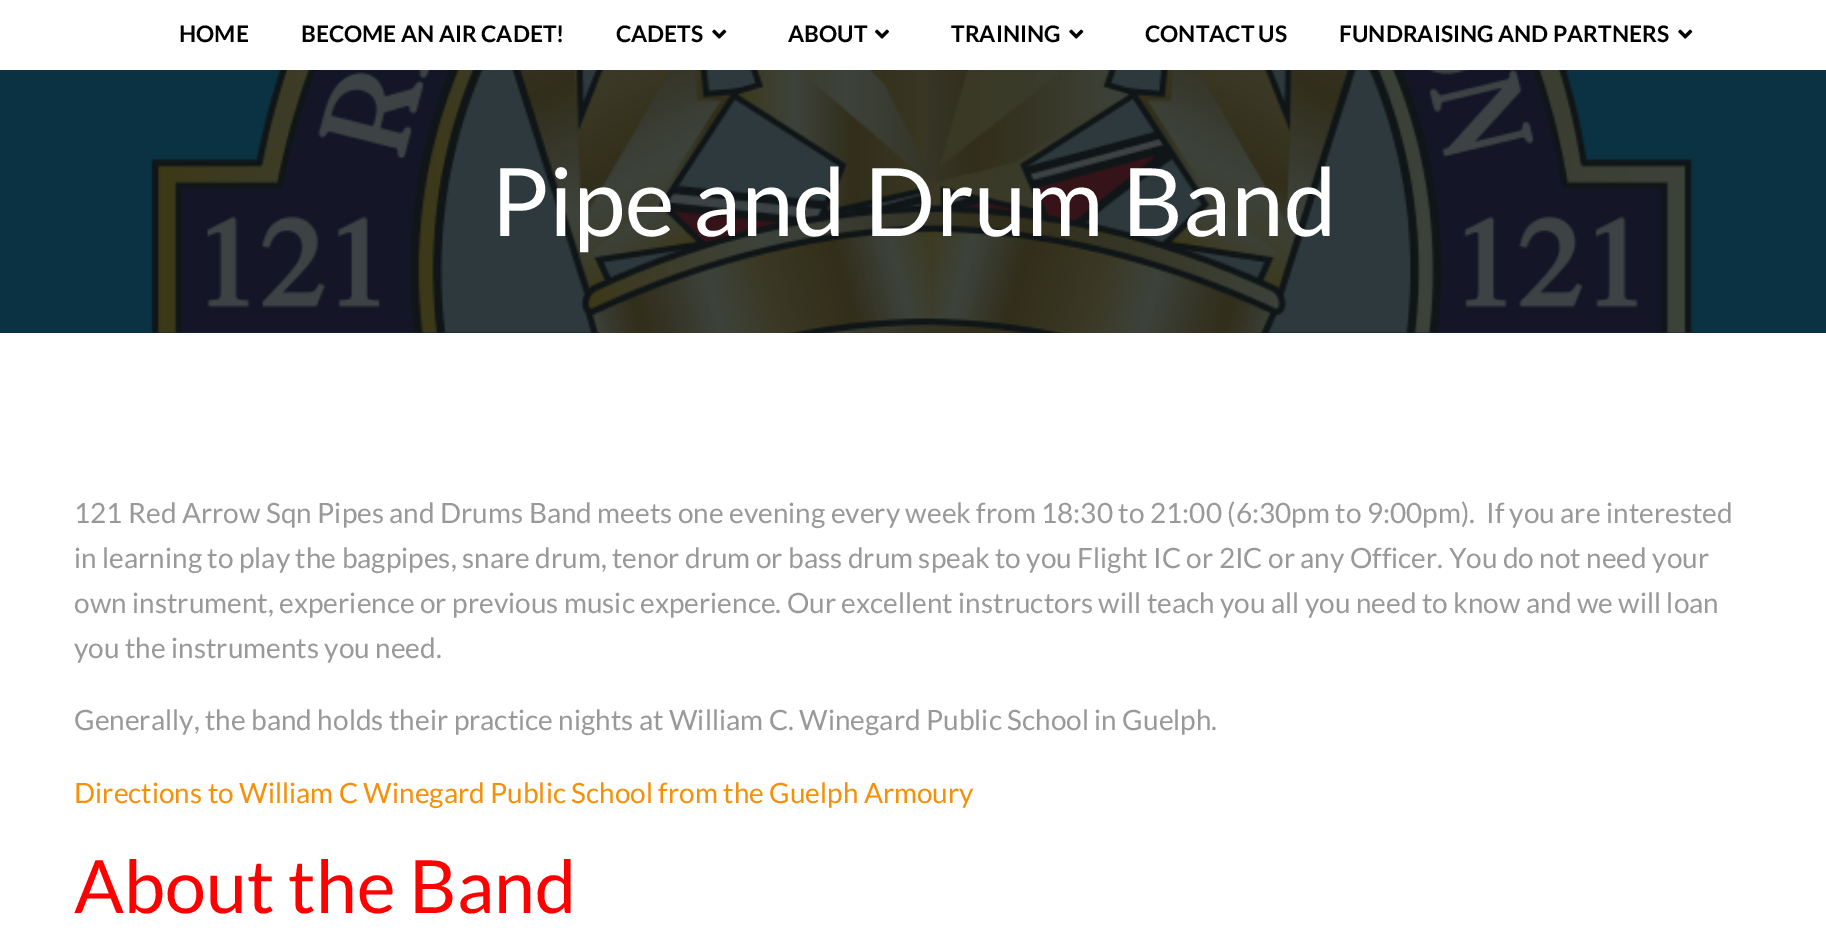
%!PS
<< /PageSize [1826 936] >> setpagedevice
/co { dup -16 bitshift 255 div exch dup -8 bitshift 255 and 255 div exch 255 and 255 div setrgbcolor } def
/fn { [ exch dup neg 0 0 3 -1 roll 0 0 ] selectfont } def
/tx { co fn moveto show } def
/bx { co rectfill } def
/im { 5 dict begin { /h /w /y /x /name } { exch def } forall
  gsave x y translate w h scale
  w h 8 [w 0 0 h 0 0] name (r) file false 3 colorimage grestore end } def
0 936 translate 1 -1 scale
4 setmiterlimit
0 0 1826 936 16#FFFFFF bx
(media/1.raw) 712 29 15 10 im
(media/2.raw) 875 29 14 10 im
(media/1.raw) 1069 29 15 10 im
(media/1.raw) 1678 29 15 10 im
0 70 1826 263 16#0A3242 bx
(media/3.raw) 150 70 1544 263 im
(media/4.raw) 511 70 847 263 im
(HOME) 179 42 /Lato-Bold 22.75 16#000000 tx
(BECOME AN AIR CADET!) 301 42 /Lato-Bold 22.75 16#000000 tx
(CADETS) 616 42 /Lato-Bold 22.75 16#000000 tx
(ABOUT) 788 42 /Lato-Bold 22.75 16#000000 tx
(TRAINING) 951 42 /Lato-Bold 22.75 16#000000 tx
(CONTACT US) 1145 42 /Lato-Bold 22.75 16#000000 tx
(FUNDRAISING AND PARTNERS) 1339 42 /Lato-Bold 22.75 16#000000 tx
(Pipe and Drum Band) 491 236 /Lato-Regular 94.5 16#FFFFFF tx
(121 Red Arrow Sqn Pipes and Drums Band meets one evening every week from 18:30 to 21:00 \(6:30pm to 9:00pm\).  If you are interested) 74 523 /Lato-Regular 28 16#999999 tx
(in learning to play the bagpipes, snare drum, tenor drum or bass drum speak to you Flight IC or 2IC or any Officer. You do not need your) 74 568 /Lato-Regular 28 16#999999 tx
(own instrument, experience or previous music experience. Our excellent instructors will teach you all you need to know and we will loan) 74 613 /Lato-Regular 28 16#999999 tx
(you the instruments you need.) 74 658 /Lato-Regular 28 16#999999 tx
(Generally, the band holds their practice nights at William C. Winegard Public School in Guelph.) 74 730 /Lato-Regular 28 16#999999 tx
(Directions to William C Winegard Public School from the Guelph Armoury) 74 803 /Lato-Regular 28 16#F79007 tx
(About the Band) 74 913 /Lato-Regular 73.5 16#FF0000 tx
showpage
